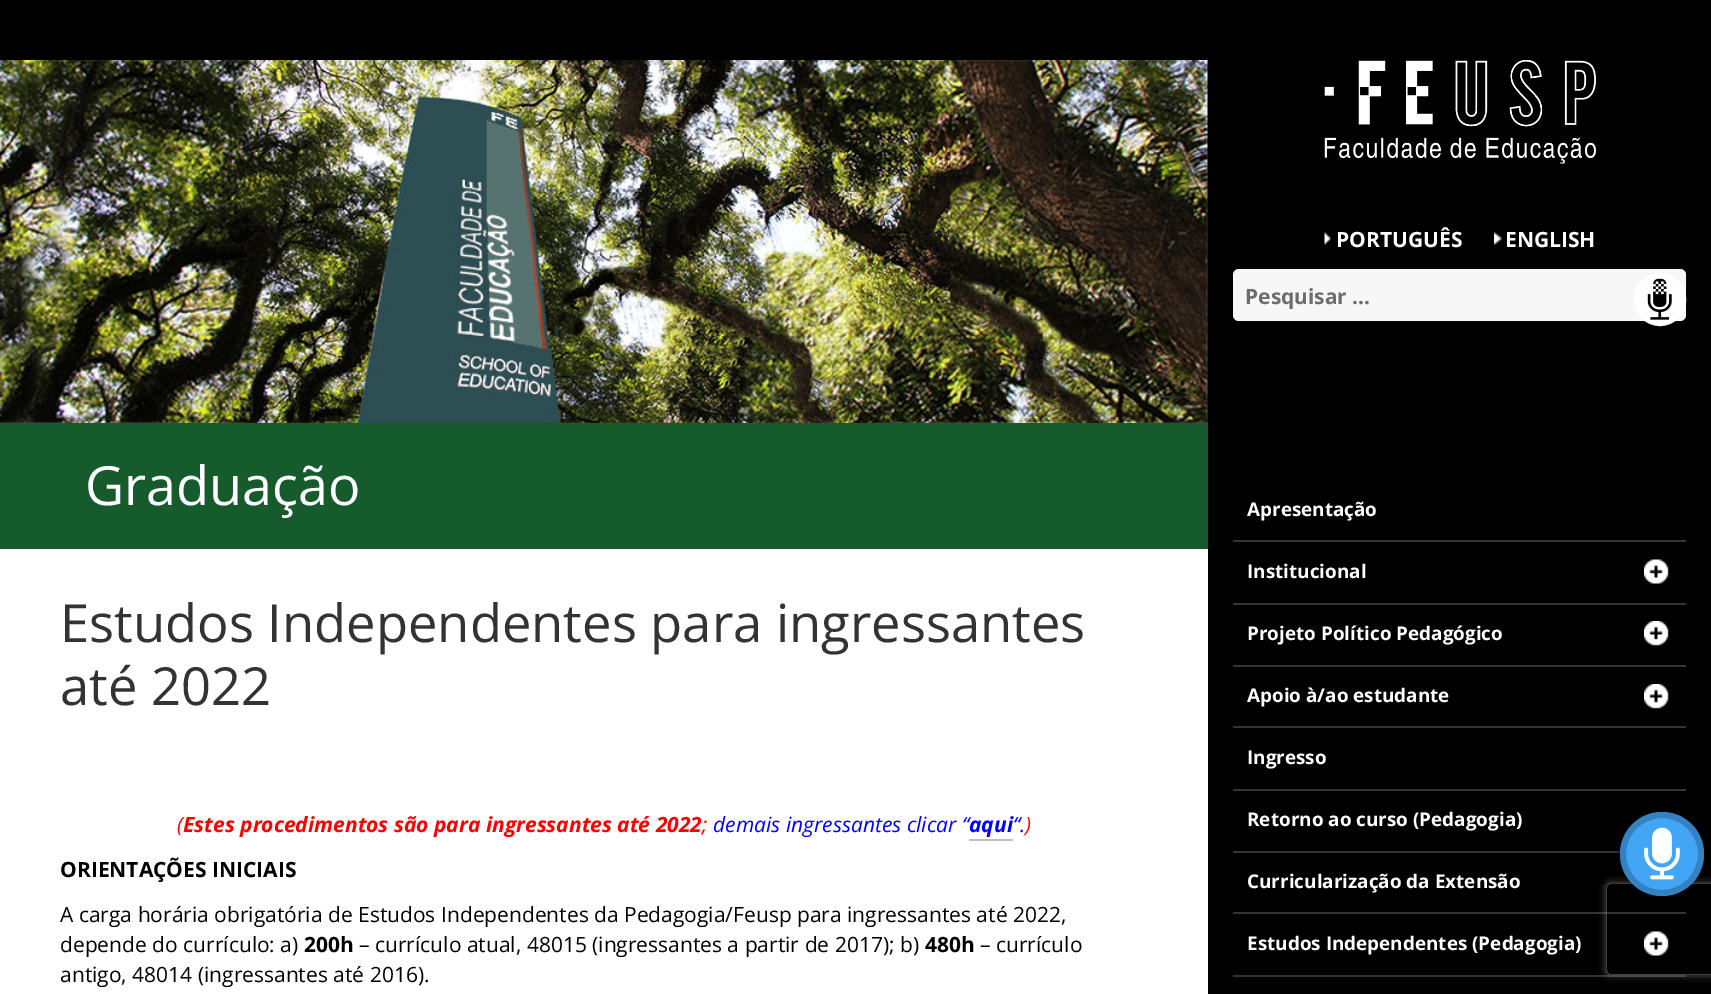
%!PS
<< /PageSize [1711 994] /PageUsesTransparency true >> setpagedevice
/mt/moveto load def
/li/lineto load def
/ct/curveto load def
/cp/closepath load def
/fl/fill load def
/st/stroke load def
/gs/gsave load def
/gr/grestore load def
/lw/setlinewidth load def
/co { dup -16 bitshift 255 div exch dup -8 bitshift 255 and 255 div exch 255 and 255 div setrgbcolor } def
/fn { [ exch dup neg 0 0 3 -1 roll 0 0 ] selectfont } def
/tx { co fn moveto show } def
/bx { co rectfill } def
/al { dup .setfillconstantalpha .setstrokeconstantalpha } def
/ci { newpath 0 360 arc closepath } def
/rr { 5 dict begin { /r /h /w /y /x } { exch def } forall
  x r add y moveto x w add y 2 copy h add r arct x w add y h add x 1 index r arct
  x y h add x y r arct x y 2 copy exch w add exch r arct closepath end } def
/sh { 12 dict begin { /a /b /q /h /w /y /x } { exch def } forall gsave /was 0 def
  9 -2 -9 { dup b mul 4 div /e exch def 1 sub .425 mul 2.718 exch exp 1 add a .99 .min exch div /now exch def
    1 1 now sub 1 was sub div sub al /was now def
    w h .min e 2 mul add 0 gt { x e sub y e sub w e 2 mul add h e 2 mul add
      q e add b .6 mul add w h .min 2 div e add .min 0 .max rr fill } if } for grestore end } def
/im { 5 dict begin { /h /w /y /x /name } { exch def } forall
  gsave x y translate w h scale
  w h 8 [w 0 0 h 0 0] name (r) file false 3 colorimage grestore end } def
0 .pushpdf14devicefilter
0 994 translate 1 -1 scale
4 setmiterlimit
0 0 1711 994 16#000000 bx
(media/1.raw) 0 60 1208 363 im
0 423 1208 126 16#165B2C bx
0 549 1208 445 16#FFFFFF bx
969 839 44 2 16#BEBEBE bx
(media/2.raw) 1324 60 272 104 im
(media/3.raw) 1324 232 7 13 im
(media/4.raw) 1494 232 8 13 im
16#F7F7F7 co
1233 269 453 52 6 rr fl
0.1 al
16#FFFFFF co
2 lw
1234 270 451 50 5 rr st
1 al
1635.5 274.5 49 50 24.5 rr gs fl gr
3 lw
st
(media/5.raw) 1647 278 25 42 im
1233 540 453 2 16#333333 bx
1233 603 453 2 16#333333 bx
(media/6.raw) 1644 559 25 25 im
1233 665 453 2 16#333333 bx
(media/7.raw) 1644 621 25 25 im
1233 726 453 2 16#333333 bx
(media/7.raw) 1644 684 25 25 im
1233 789 453 2 16#333333 bx
1233 851 388 2 16#333333 bx
1233 912 453 2 16#333333 bx
1233 975 453 2 16#333333 bx
(media/6.raw) 1644 931 25 25 im
16#000000 co
1620 818 84 84 42 6 .28 sh
gs
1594 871 mt 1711 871 li 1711 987 li 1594 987 li cp 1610 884 mt 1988 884 li 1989.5 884 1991 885.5 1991 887 ct 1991 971 li 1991 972.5 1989.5 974 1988 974 ct 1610 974 li 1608.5 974 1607 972.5 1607 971 ct 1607 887 li 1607 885.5 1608.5 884 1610 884 ct cp eoclip newpath
16#808080 co
1607 884 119 90 3 4 1 sh
gr
16#42A5F5 co
1662 854 42 ci fl
0.21 al
16#000000 co
6 lw
1662 854 39 ci st
1 al
(media/8.raw) 1644 827 36 53 im
(Graduação) 85 505 /OpenSans-Regular 54 16#FFFFFF tx
(Estudos Independentes para ingressantes) 60 642 /OpenSans-Regular 52.5 16#333333 tx
(até 2022) 60 705 /OpenSans-Regular 52.5 16#333333 tx
(\() 177 832 /OpenSans-Italic 21 16#FF0000 tx
(Estes procedimentos são para ingressantes até 2022) 183 832 /OpenSans-BoldItalic 21 16#FF0000 tx
(;) 702 832 /OpenSans-Italic 21 16#FF0000 tx
(demais ingressantes clicar “) 713 832 /OpenSans-Italic 21 16#0000FF tx
(aqui) 969 832 /OpenSans-BoldItalic 21 16#0000FF tx
(“.) 1013 832 /OpenSans-Italic 21 16#0000FF tx
(\)) 1025 832 /OpenSans-Italic 21 16#FF0000 tx
(ORIENTAÇÕES INICIAIS) 60 877 /OpenSans-Bold 21 16#000000 tx
(A carga horária obrigatória de Estudos Independentes da Pedagogia/Feusp para ingressantes até 2022,) 60 922 /OpenSans-Regular 21 16#000000 tx
(depende do currículo: a\)) 60 952 /OpenSans-Regular 21 16#000000 tx
(200h) 304 952 /OpenSans-Bold 21 16#000000 tx
(– currículo atual, 48015 \(ingressantes a partir de 2017\); b\)) 359 952 /OpenSans-Regular 21 16#000000 tx
(480h) 925 952 /OpenSans-Bold 21 16#000000 tx
(– currículo) 980 952 /OpenSans-Regular 21 16#000000 tx
(antigo, 48014 \(ingressantes até 2016\).) 60 982 /OpenSans-Regular 21 16#000000 tx
(PORTUGUÊS) 1336 247 /OpenSans-Bold 21 16#FFFFFF tx
(ENGLISH) 1505 247 /OpenSans-Bold 21 16#FFFFFF tx
gs
1245 281 423 28 rectclip
(Pesquisar …) 1245 304 /NotoSans-Bold 21 16#6E6E6E tx
gr
(Apresentação) 1247 516 /OpenSans-Bold 18.9 16#FFFFFF tx
(Institucional) 1247 578 /OpenSans-Bold 18.9 16#FFFFFF tx
(Projeto Político Pedagógico) 1247 640 /OpenSans-Bold 18.9 16#FFFFFF tx
(Apoio à/ao estudante) 1247 702 /OpenSans-Bold 18.9 16#FFFFFF tx
(Ingresso) 1247 764 /OpenSans-Bold 18.9 16#FFFFFF tx
(Retorno ao curso \(Pedagogia\)) 1247 826 /OpenSans-Bold 18.9 16#FFFFFF tx
(Curricularização da Extensão) 1247 888 /OpenSans-Bold 18.9 16#FFFFFF tx
(Estudos Independentes \(Pedagogia\)) 1247 950 /OpenSans-Bold 18.9 16#FFFFFF tx
.poppdf14devicefilter showpage
